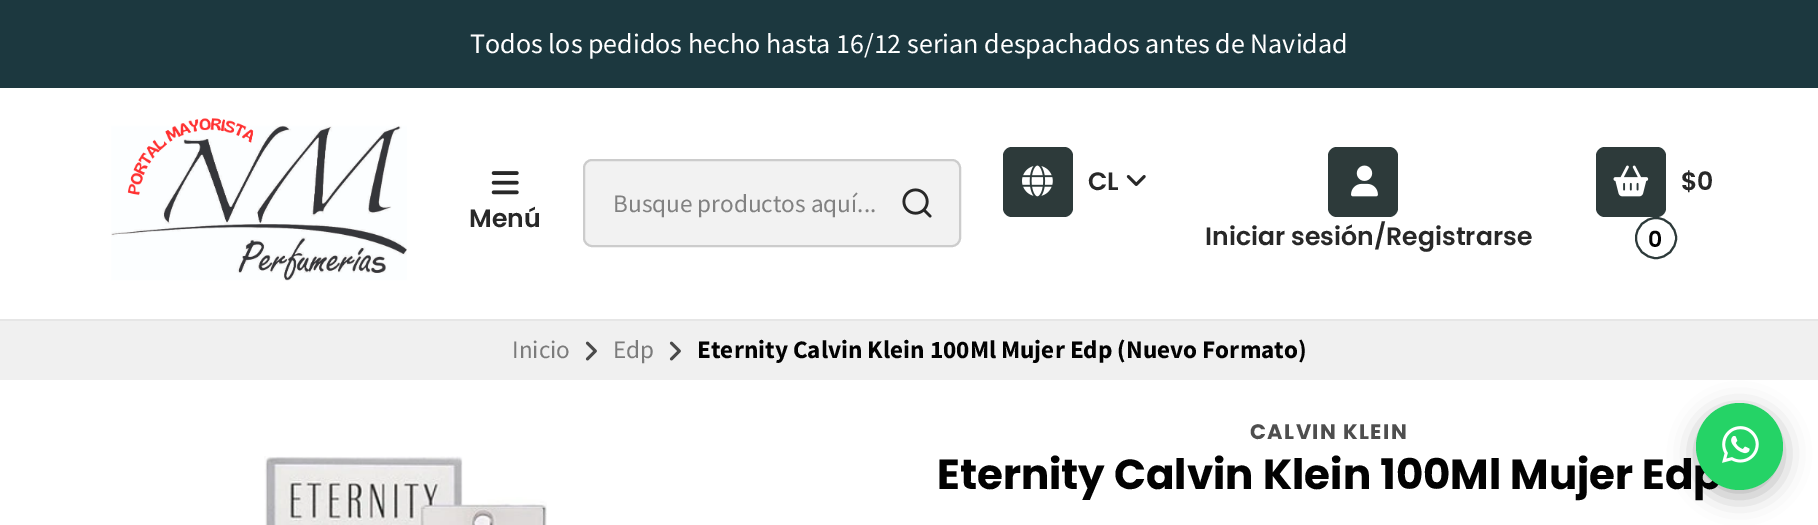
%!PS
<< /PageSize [1818 525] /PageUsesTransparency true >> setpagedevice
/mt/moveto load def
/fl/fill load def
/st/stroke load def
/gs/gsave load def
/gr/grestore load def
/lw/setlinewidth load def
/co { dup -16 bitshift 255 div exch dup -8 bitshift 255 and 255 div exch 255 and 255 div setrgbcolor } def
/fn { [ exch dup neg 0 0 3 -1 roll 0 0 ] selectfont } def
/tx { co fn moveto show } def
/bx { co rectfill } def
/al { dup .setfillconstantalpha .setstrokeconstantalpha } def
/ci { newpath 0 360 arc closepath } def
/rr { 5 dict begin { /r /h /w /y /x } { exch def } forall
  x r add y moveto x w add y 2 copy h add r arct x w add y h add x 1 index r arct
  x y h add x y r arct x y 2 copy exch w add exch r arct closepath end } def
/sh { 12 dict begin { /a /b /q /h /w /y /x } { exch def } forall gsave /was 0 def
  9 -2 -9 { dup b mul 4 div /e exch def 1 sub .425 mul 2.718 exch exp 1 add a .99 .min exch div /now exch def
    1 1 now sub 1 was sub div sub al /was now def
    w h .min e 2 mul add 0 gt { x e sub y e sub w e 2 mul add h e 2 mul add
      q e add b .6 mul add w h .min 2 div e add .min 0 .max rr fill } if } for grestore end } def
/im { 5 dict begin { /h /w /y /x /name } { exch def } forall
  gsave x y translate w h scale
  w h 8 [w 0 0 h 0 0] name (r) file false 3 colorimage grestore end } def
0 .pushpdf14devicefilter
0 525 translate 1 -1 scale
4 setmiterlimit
0 0 1818 525 16#FFFFFF bx
0 319 1818 2 16#E6E6E6 bx
0 0 1818 88 16#1C383F bx
(media/1.raw) 111 118 296 163 im
(media/2.raw) 491 171 28 24 im
16#F2F2F2 co
584 160 376 86 8 rr gs fl gr
16#CCCCCC co
2 lw
st
(media/3.raw) 902 188 30 30 im
16#2D3A3A co
1003 147 70 70 9 rr fl
(media/4.raw) 1022 165 31 32 im
(media/5.raw) 1126 175 20 11 im
1596 147 70 70 9 rr fl
(media/6.raw) 1613 165 36 32 im
1656 238 20 ci st
1328 147 70 70 9 rr fl
(media/7.raw) 1351 165 27 32 im
0 321 1818 59 16#F0F0F0 bx
(media/8.raw) 585 341 12 20 im
(media/8.raw) 669 341 12 20 im
(media/9.raw) 264 456 283 69 im
16#020202 co
1696 410 87 87 43.5 13 .3 sh
(Todos los pedidos hecho hasta 16/12 serian despachados antes de Navidad) 470 53 /SourceSansPro-Regular 28 16#FFFFFF tx
(Menú) 469 227 /Poppins-SemiBold 25.2 16#282828 tx
(Busque productos aquí...) 613 212 /SourceSansPro-Regular 25.2 16#818181 tx
(CL) 1088 190 /Poppins-SemiBold 25.2 16#282828 tx
($0) 1681 190 /Poppins-SemiBold 25.2 16#282828 tx
(0) 1648 247 /Poppins-SemiBold 22 16#020202 tx
(Iniciar sesión/Registrarse) 1205 245 /Poppins-SemiBold 25.2 16#282828 tx
(Inicio) 512 358 /SourceSansPro-Regular 25.2 16#7B7B7B tx
(Edp) 613 358 /SourceSansPro-Regular 25.2 16#7B7B7B tx
(Eternity Calvin Klein 100Ml Mujer Edp \(Nuevo Formato\)) 697 358 /SourceSansPro-Bold 25.2 16#020202 tx
/Poppins-Bold 21 fn
16#4E4E4E co
1250 439 mt 1.4 0 (CALVIN KLEIN) ashow
(Eternity Calvin Klein 100Ml Mujer Edp) 937 489 /Poppins-Bold 42 16#020202 tx
16#25D366 co
1739.5 446.5 43.5 ci fl
(media/10.raw) 1722 426 37 37 im
.poppdf14devicefilter showpage
